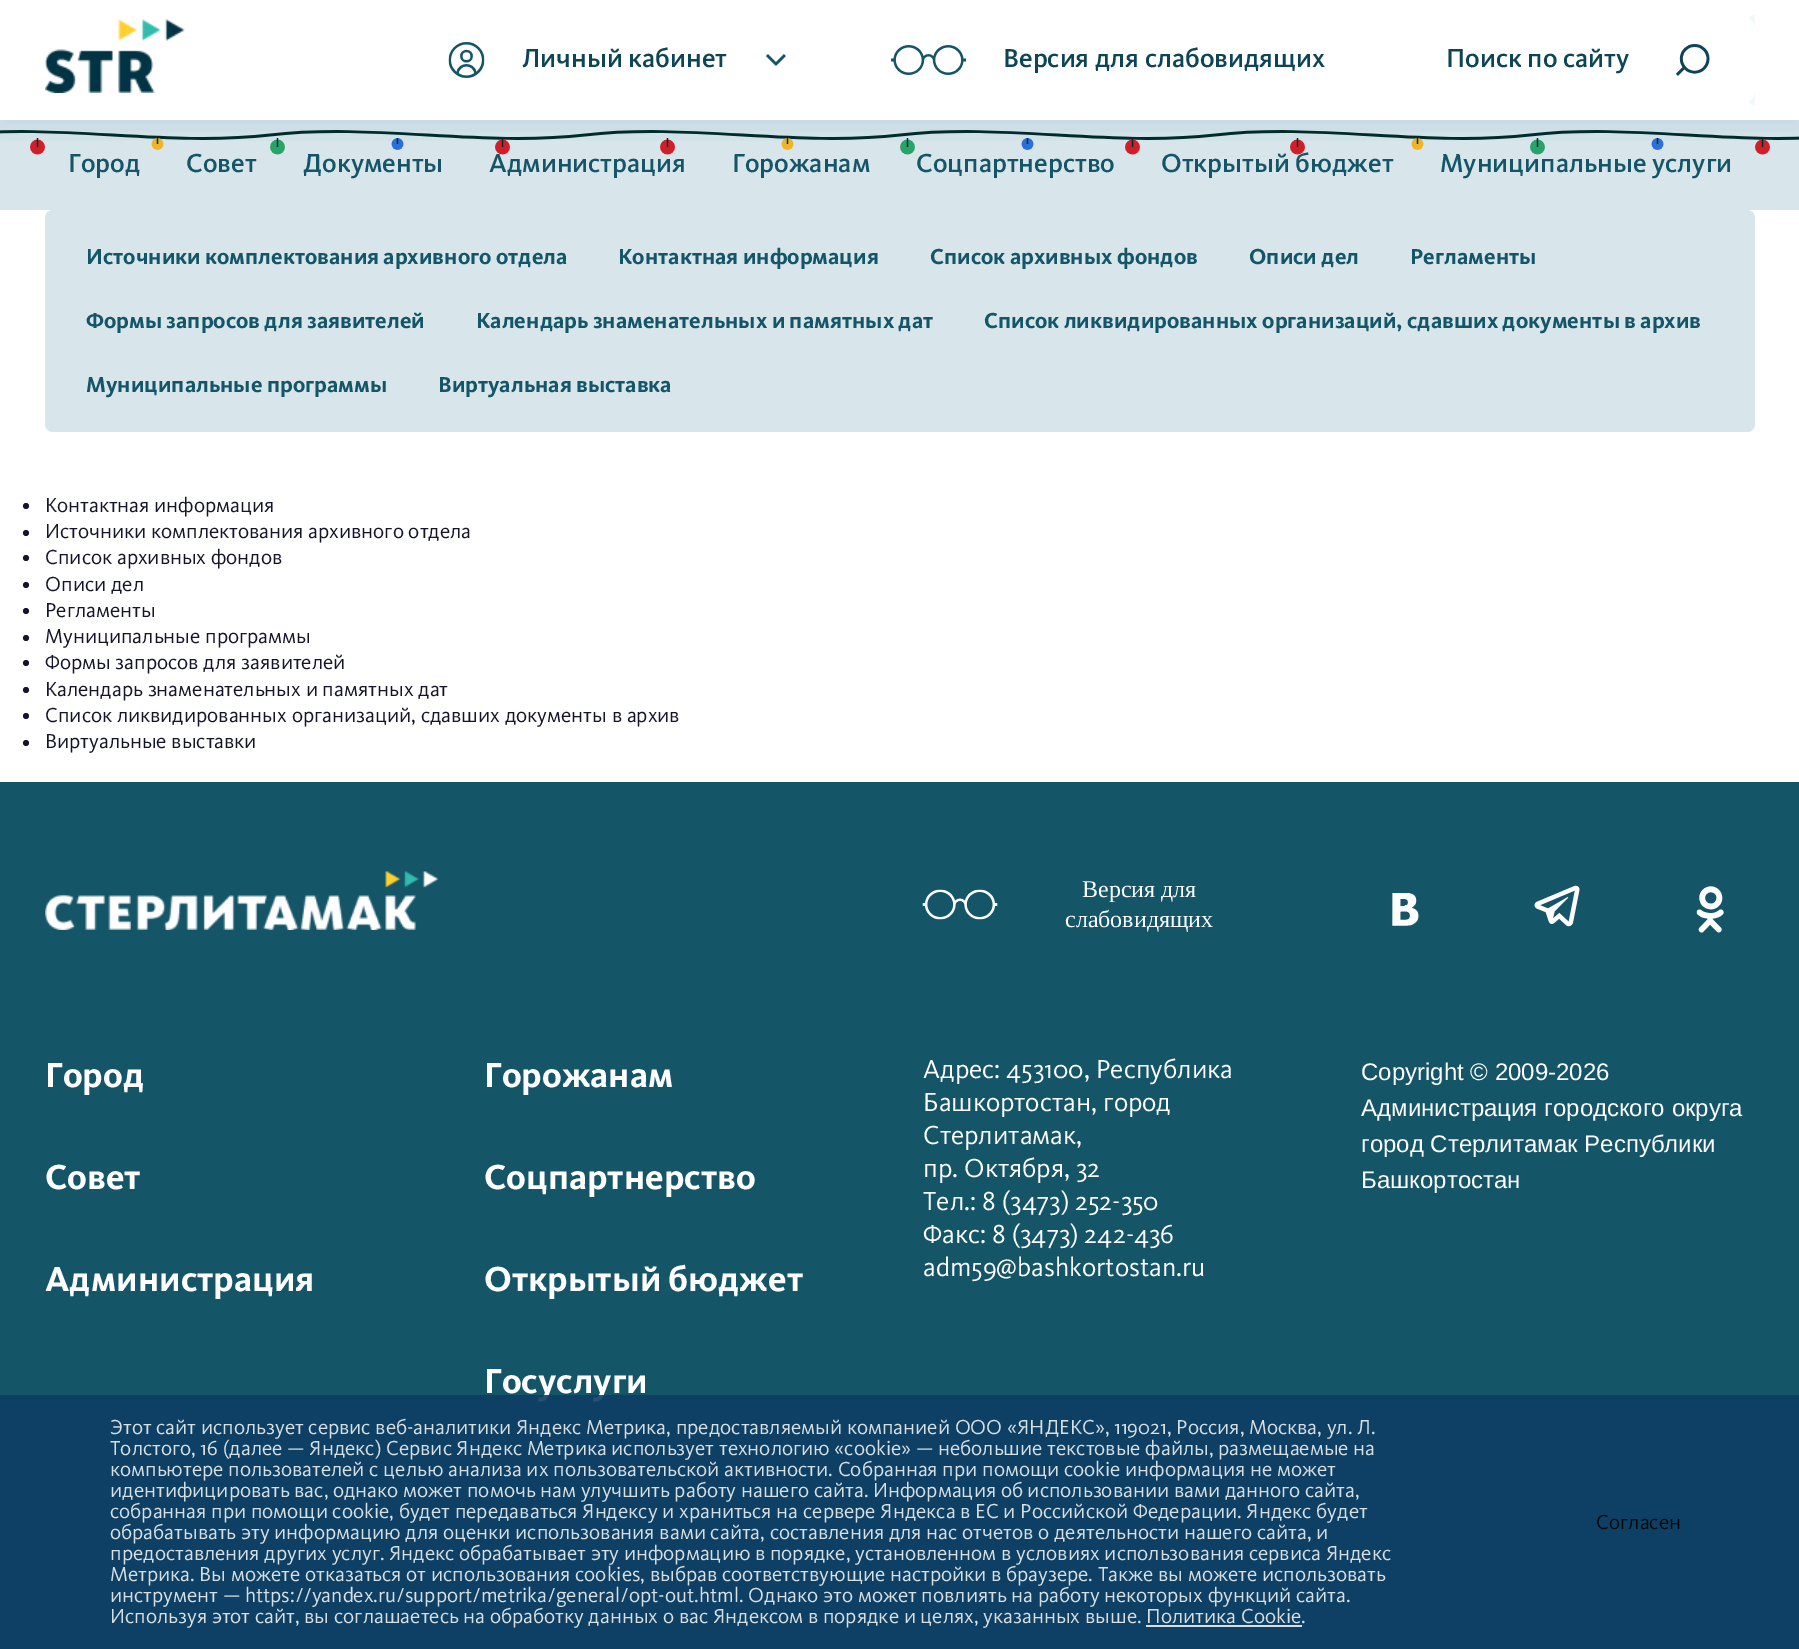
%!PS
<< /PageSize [1799 1649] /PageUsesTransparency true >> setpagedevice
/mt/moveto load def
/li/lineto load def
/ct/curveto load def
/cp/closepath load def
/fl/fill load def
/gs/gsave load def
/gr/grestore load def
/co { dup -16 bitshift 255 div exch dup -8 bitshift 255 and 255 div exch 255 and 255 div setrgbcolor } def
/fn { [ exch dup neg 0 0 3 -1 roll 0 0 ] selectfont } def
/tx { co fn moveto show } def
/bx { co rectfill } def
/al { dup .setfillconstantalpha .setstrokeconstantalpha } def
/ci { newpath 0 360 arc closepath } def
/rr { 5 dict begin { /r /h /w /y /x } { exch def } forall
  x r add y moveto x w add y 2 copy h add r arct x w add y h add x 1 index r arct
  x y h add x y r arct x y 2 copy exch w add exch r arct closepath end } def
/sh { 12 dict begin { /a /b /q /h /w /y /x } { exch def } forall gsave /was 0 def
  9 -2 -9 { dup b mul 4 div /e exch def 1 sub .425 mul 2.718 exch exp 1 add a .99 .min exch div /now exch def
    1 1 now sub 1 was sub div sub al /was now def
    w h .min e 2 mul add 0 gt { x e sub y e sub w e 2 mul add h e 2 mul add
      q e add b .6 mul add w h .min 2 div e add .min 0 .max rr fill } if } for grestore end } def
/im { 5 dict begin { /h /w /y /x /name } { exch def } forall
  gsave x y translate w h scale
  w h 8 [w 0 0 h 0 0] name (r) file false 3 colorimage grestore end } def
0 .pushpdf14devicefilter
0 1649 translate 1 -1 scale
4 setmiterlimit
0 0 1799 1649 16#FFFFFF bx
0 120 1799 90 16#D8E6EB bx
45 210 1710 222 8 rr fl
16#14142B co
26 506 3 ci fl
26 533 3 ci fl
26 558 3 ci fl
26 585 3 ci fl
26 611 3 ci fl
26 638 3 ci fl
26 663 3 ci fl
26 690 3 ci fl
26 716 3 ci fl
26 743 3 ci fl
0 782 1799 867 16#145568 bx
(media/7.raw) 45 871 393 59 im
(media/8.raw) 922 889 76 31 im
(media/9.raw) 1392 893 27 33 im
(media/10.raw) 1534 885 46 42 im
(media/11.raw) 1696 886 28 47 im
(Город) 68 172 /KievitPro-Medium 27 16#145568 tx
(Совет) 186 172 /KievitPro-Medium 27 16#145568 tx
(Документы) 303 172 /KievitPro-Medium 27 16#145568 tx
(Администрация) 489 172 /KievitPro-Medium 27 16#145568 tx
(Горожанам) 732 172 /KievitPro-Medium 27 16#145568 tx
(Соцпартнерство) 916 172 /KievitPro-Medium 27 16#145568 tx
(Открытый бюджет) 1161 172 /KievitPro-Medium 27 16#145568 tx
(Муниципальные услуги) 1440 172 /KievitPro-Medium 27 16#145568 tx
(media/6.raw) 0 130 1799 25 im
gs
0 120 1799 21 rectclip
16#0B4671 co
0 8 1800 120 0 15 .1 sh
gr
16#F2F8FC co
1755 15 mt 1755 105 li 1750 105 1746 101 1746 96 ct 1746 24 li 1746 19 1750 15 1755 15 ct cp fl
16#FFFFFF co
1401 15 354 90 15 rr fl
(media/5.raw) 1676 44 34 32 im
(Поиск по сайту) 1446 67 /KievitPro-Medium 27 16#0D4556 tx
(media/3.raw) 766 54 20 12 im
(media/2.raw) 448 42 37 36 im
(Личный кабинет) 522 67 /KievitPro-Medium 27 16#0D4556 tx
(media/4.raw) 891 45 75 30 im
(Версия для слабовидящих) 1003 67 /KievitPro-Medium 27 16#0D4556 tx
(media/1.raw) 45 19 140 74 im
(Источники комплектования архивного отдела) 86 264 /KievitPro-Bold 22.5 16#145568 tx
(Контактная информация) 618 264 /KievitPro-Bold 22.5 16#145568 tx
(Список архивных фондов) 930 264 /KievitPro-Bold 22.5 16#145568 tx
(Описи дел) 1249 264 /KievitPro-Bold 22.5 16#145568 tx
(Регламенты) 1410 264 /KievitPro-Bold 22.5 16#145568 tx
(Формы запросов для заявителей) 86 328 /KievitPro-Bold 22.5 16#145568 tx
(Календарь знаменательных и памятных дат) 476 328 /KievitPro-Bold 22.5 16#145568 tx
(Список ликвидированных организаций, сдавших документы в архив) 984 328 /KievitPro-Bold 22.5 16#145568 tx
(Муниципальные программы) 86 392 /KievitPro-Bold 22.5 16#145568 tx
(Виртуальная выставка) 438 392 /KievitPro-Bold 22.5 16#145568 tx
(Контактная информация) 45 512 /KievitPro-Regular 21 16#14142B tx
(Источники комплектования архивного отдела) 45 538 /KievitPro-Regular 21 16#14142B tx
(Список архивных фондов) 45 564 /KievitPro-Regular 21 16#14142B tx
(Описи дел) 45 591 /KievitPro-Regular 21 16#14142B tx
(Регламенты) 45 617 /KievitPro-Regular 21 16#14142B tx
(Муниципальные программы) 45 643 /KievitPro-Regular 21 16#14142B tx
(Формы запросов для заявителей) 45 669 /KievitPro-Regular 21 16#14142B tx
(Календарь знаменательных и памятных дат) 45 696 /KievitPro-Regular 21 16#14142B tx
(Список ликвидированных организаций, сдавших документы в архив) 45 722 /KievitPro-Regular 21 16#14142B tx
(Виртуальные выставки) 45 748 /KievitPro-Regular 21 16#14142B tx
(Версия для) 1082 897 /LiberationSerif-Regular 24 16#FFFFFF tx
(слабовидящих) 1065 927 /LiberationSerif-Regular 24 16#FFFFFF tx
(Город) 45 1087 /KievitPro-Bold 36 16#FFFFFF tx
(Совет) 45 1189 /KievitPro-Bold 36 16#FFFFFF tx
(Администрация) 45 1291 /KievitPro-Bold 36 16#FFFFFF tx
(Горожанам) 484 1087 /KievitPro-Bold 36 16#FFFFFF tx
(Соцпартнерство) 484 1189 /KievitPro-Bold 36 16#FFFFFF tx
(Открытый бюджет) 484 1291 /KievitPro-Bold 36 16#FFFFFF tx
(Госуслуги) 484 1393 /KievitPro-Bold 36 16#FFFFFF tx
(Адрес: 453100, Республика) 923 1078 /KievitPro-Regular 27 16#FFFFFF tx
(Башкортостан, город) 923 1111 /KievitPro-Regular 27 16#FFFFFF tx
(Стерлитамак,) 923 1144 /KievitPro-Regular 27 16#FFFFFF tx
(пр. Октября, 32) 923 1177 /KievitPro-Regular 27 16#FFFFFF tx
(Тел.: 8 \(3473\) 252-350) 923 1210 /KievitPro-Regular 27 16#FFFFFF tx
(Факс: 8 \(3473\) 242-436) 923 1243 /KievitPro-Regular 27 16#FFFFFF tx
(adm59@bashkortostan.ru) 923 1276 /KievitPro-Regular 27 16#FFFFFF tx
(Copyright © 2009-2026) 1361 1080 /LiberationSans-Regular 24 16#FFFFFF tx
(Администрация городского округа) 1361 1116 /LiberationSans-Regular 24 16#FFFFFF tx
(город Стерлитамак Республики) 1361 1152 /LiberationSans-Regular 24 16#FFFFFF tx
(Башкортостан) 1361 1188 /LiberationSans-Regular 24 16#FFFFFF tx
0.9 al
0 1395 1799 254 16#0D3E66 bx
1 al
(Этот сайт использует сервис веб-аналитики Яндекс Метрика, предоставляемый компанией ООО «ЯНДЕКС», 119021, Россия, Москва, ул. Л.) 110 1434 /KievitPro-Regular 21 16#D8DFE1 tx
(Толстого, 16 \(далее — Яндекс\) Сервис Яндекс Метрика использует технологию «cookie» — небольшие текстовые файлы, размещаемые на) 110 1455 /KievitPro-Regular 21 16#D8DFE1 tx
(компьютере пользователей с целью анализа их пользовательской активности. Собранная при помощи cookie информация не может) 110 1476 /KievitPro-Regular 21 16#D8DFE1 tx
(идентифицировать вас, однако может помочь нам улучшить работу нашего сайта. Информация об использовании вами данного сайта,) 110 1497 /KievitPro-Regular 21 16#D8DFE1 tx
(собранная при помощи cookie, будет передаваться Яндексу и храниться на сервере Яндекса в ЕС и Российской Федерации. Яндекс будет) 110 1518 /KievitPro-Regular 21 16#D8DFE1 tx
(обрабатывать эту информацию для оценки использования вами сайта, составления для нас отчетов о деятельности нашего сайта, и) 110 1539 /KievitPro-Regular 21 16#D8DFE1 tx
(предоставления других услуг. Яндекс обрабатывает эту информацию в порядке, установленном в условиях использования сервиса Яндекс) 110 1560 /KievitPro-Regular 21 16#D8DFE1 tx
(Метрика. Вы можете отказаться от использования cookies, выбрав соответствующие настройки в браузере. Также вы можете использовать) 110 1581 /KievitPro-Regular 21 16#D8DFE1 tx
(инструмент — https://yandex.ru/support/metrika/general/opt-out.html. Однако это может повлиять на работу некоторых функций сайта.) 110 1602 /KievitPro-Regular 21 16#D8DFE1 tx
(Используя этот сайт, вы соглашаетесь на обработку данных о вас Яндексом в порядке и целях, указанных выше. Политика Cookie.) 110 1623 /KievitPro-Regular 21 16#D8DFE1 tx
1146 1625 156 2 16#D8DFE1 bx
(Согласен) 1596 1529 /KievitPro-Regular 21 16#02090A tx
.poppdf14devicefilter showpage
